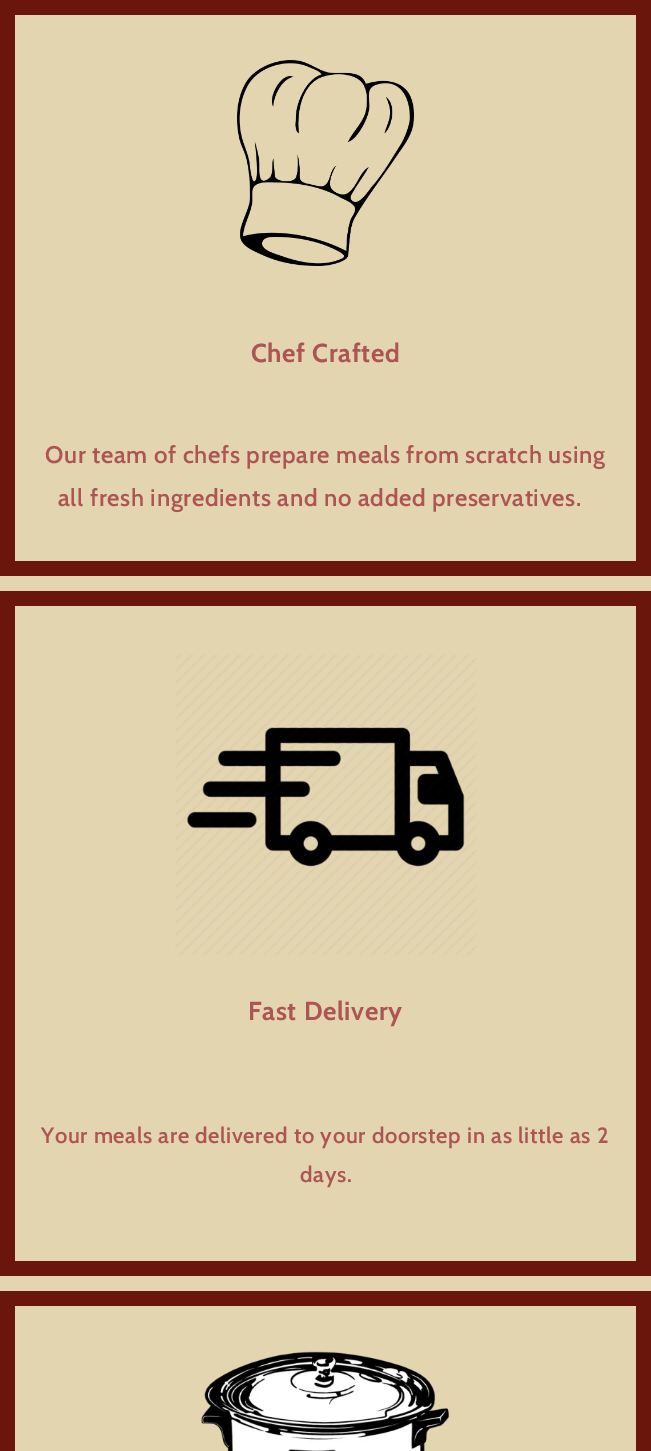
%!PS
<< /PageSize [651 1451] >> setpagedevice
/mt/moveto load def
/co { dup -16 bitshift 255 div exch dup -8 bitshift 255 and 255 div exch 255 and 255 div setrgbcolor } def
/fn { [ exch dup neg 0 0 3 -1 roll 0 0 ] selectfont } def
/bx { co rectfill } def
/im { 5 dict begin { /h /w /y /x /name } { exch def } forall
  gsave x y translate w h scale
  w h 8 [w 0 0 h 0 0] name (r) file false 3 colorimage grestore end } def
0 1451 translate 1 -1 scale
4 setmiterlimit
0 0 651 1451 16#E4D5B1 bx
0 0 651 576 16#6B160D bx
15 15 621 546 16#E4D5B1 bx
(media/1.raw) 237 60 177 206 im
0 591 651 685 16#6B160D bx
15 606 621 655 16#E4D5B1 bx
(media/2.raw) 175 654 302 302 im
0 1291 651 160 16#6B160D bx
15 1306 621 145 16#E4D5B1 bx
(media/3.raw) 201 1351 249 100 im
/Cabin-Bold 26 fn
16#AD5454 co
251 362 mt .63 0 (Chef Crafted) ashow
/Cabin-SemiBold 24 fn
45 463 mt .63 0 (Our team of chefs prepare meals from scratch using) ashow
58 506 mt .63 0 (all fresh ingredients and no added preservatives.) ashow
/Cabin-Bold 26 fn
248 1020 mt .63 0 (Fast Delivery) ashow
/Cabin-SemiBold 22 fn
41 1143 mt .63 0 (Your meals are delivered to your doorstep in as little as 2) ashow
300 1182 mt .63 0 (days.) ashow
showpage
